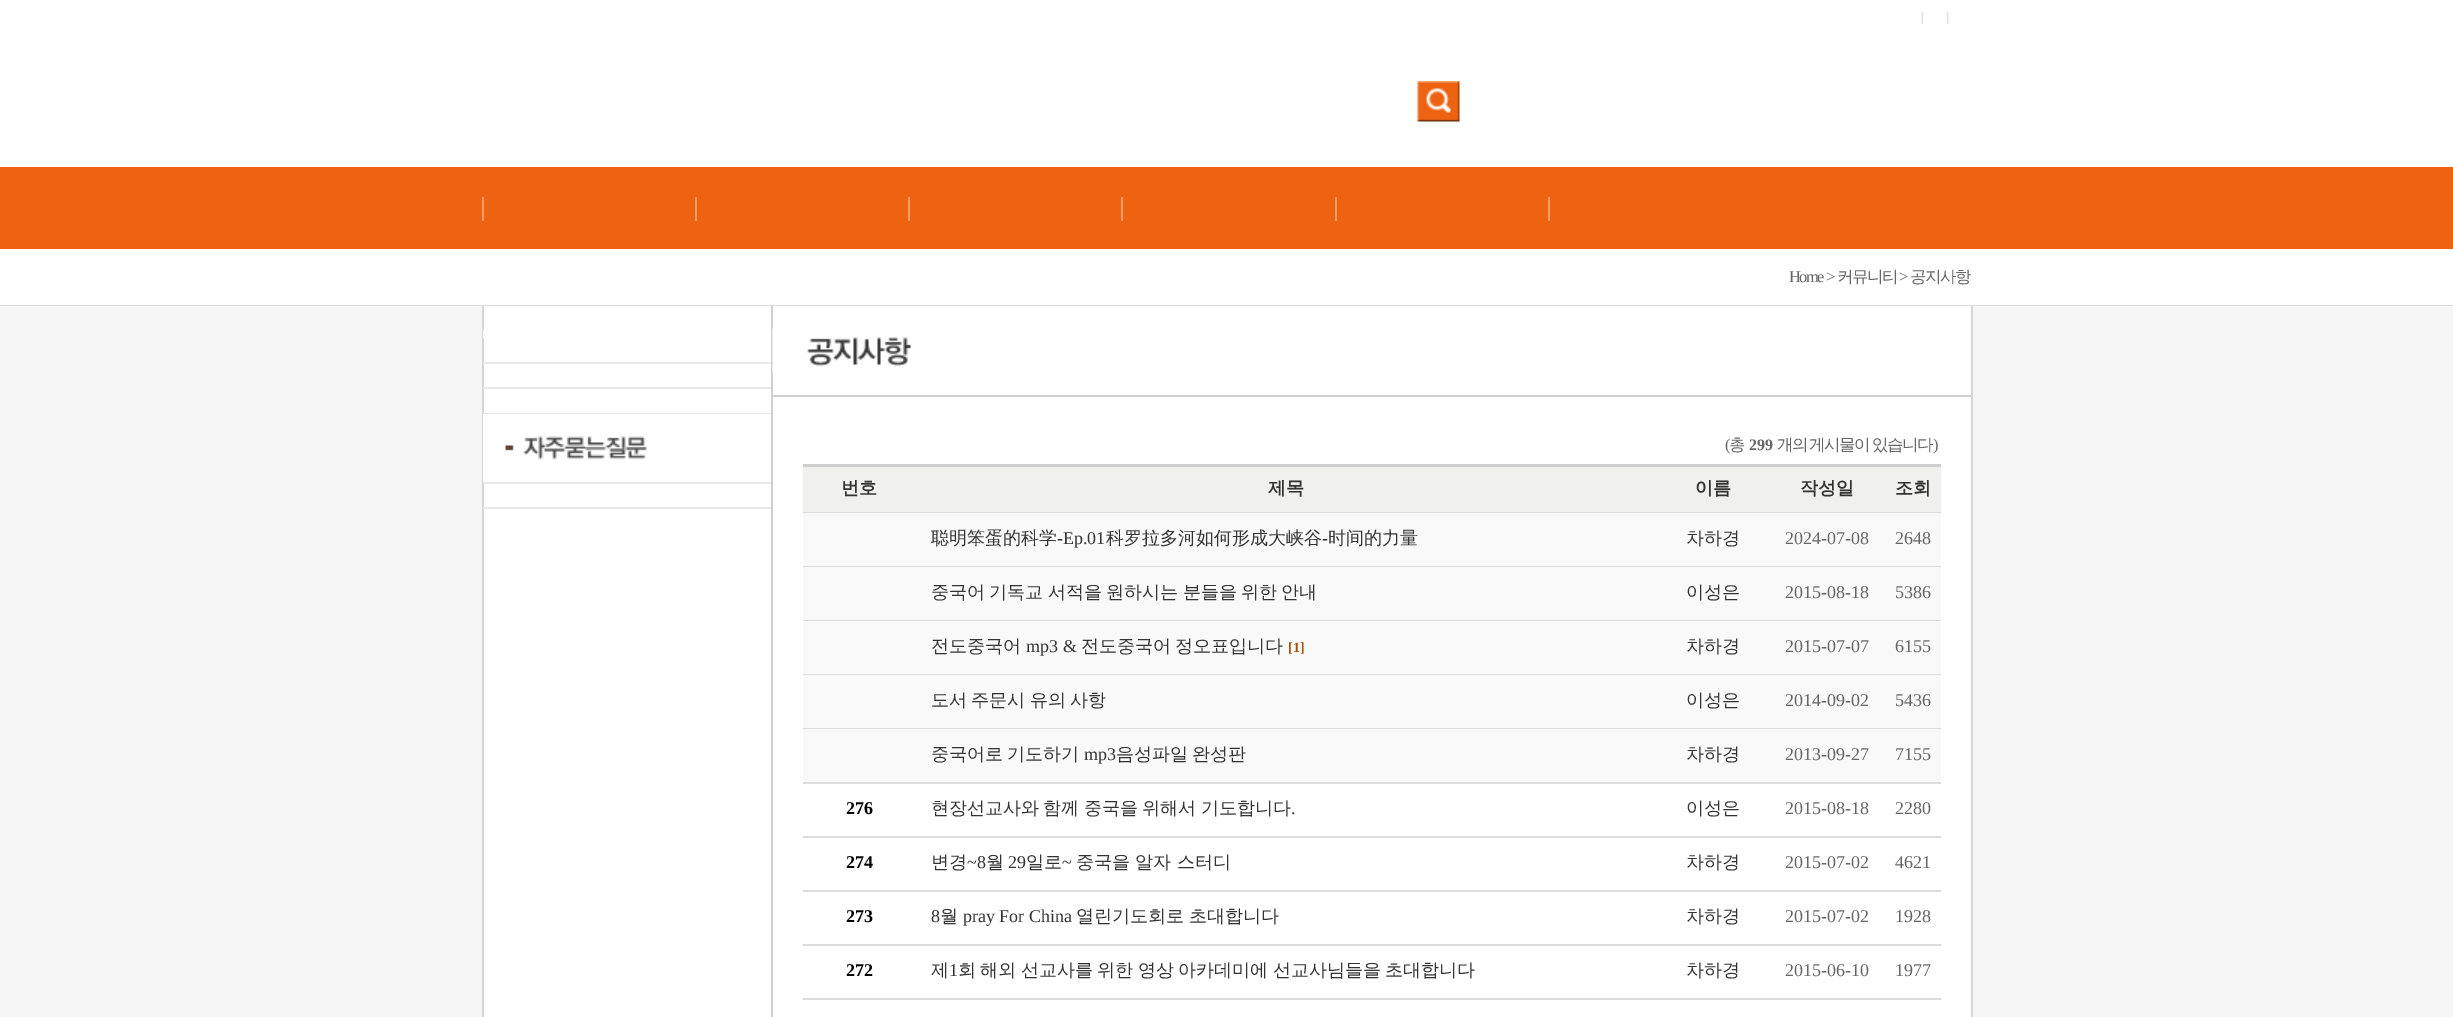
%!PS
<< /PageSize [2453 1017] >> setpagedevice
/mt/moveto load def
/co { dup -16 bitshift 255 div exch dup -8 bitshift 255 and 255 div exch 255 and 255 div setrgbcolor } def
/fn { [ exch dup neg 0 0 3 -1 roll 0 0 ] selectfont } def
/tx { co fn moveto show } def
/bx { co rectfill } def
/im { 5 dict begin { /h /w /y /x /name } { exch def } forall
  gsave x y translate w h scale
  w h 8 [w 0 0 h 0 0] name (r) file false 3 colorimage grestore end } def
0 1017 translate 1 -1 scale
4 setmiterlimit
0 0 2453 1017 16#FFFFFF bx
(media/1.raw) 1921 12 2 13 im
(media/2.raw) 1947 12 2 13 im
(media/3.raw) 1417 81 43 41 im
0 167 2453 82 16#ED6311 bx
482 197 2 24 16#F49D69 bx
695 197 2 24 16#F49D69 bx
908 197 2 24 16#F49D69 bx
1121 197 2 24 16#F49D69 bx
1335 197 2 24 16#F49D69 bx
1548 197 2 24 16#F49D69 bx
0 305 2453 1 16#DBDBDB bx
0 306 2453 711 16#F6F6F6 bx
484 306 1487 711 16#FFFFFF bx
1971 306 2 711 16#D6D6D6 bx
482 306 2 711 16#D6D6D6 bx
483 330 1 8 16#FFFFFF bx
483 362 288 2 16#E8E8E8 bx
483 387 288 2 16#E8E8E8 bx
483 413 288 1 16#E8E8E8 bx
(media/4.raw) 483 414 288 68 im
483 482 288 2 16#E8E8E8 bx
483 507 288 2 16#E8E8E8 bx
771 306 2 711 16#D0D0D0 bx
(media/5.raw) 772 328 139 46 im
773 395 1198 2 16#D0D0D0 bx
803 464 1138 3 16#CFCFCF bx
803 467 1138 45 16#F0F0EE bx
803 512 1138 1 16#DDDDDD bx
803 513 1138 53 16#F9F9F9 bx
803 566 1138 1 16#DDDDDD bx
803 567 1138 53 16#F9F9F9 bx
803 620 1138 1 16#DDDDDD bx
803 621 1138 53 16#F9F9F9 bx
803 674 1138 1 16#DDDDDD bx
803 675 1138 53 16#F9F9F9 bx
803 728 1138 1 16#DDDDDD bx
803 729 1138 53 16#F9F9F9 bx
803 782 1138 2 16#DDDDDD bx
803 836 1138 2 16#DDDDDD bx
803 890 1138 2 16#DDDDDD bx
803 944 1138 2 16#DDDDDD bx
803 998 1138 2 16#DDDDDD bx
/LiberationSerif-Regular 16.5 fn
16#666666 co
1789 282 mt -1.5 0 (Home >) ashow
/WenQuanYiZenHei-Medium 16.5 fn
1837 282 mt -1.5 0 (커뮤니티) ashow
/LiberationSerif-Regular 16.5 fn
1899 282 mt -1.5 0 (>) ashow
/WenQuanYiZenHei-Medium 16.5 fn
1910 282 mt -1.5 0 (공지사항) ashow
/LiberationSerif-Regular 16.5 fn
1725 450 mt -1.5 0 (\() ashow
/WenQuanYiZenHei-Medium 16.5 fn
1729 450 mt -1.5 0 (총) ashow
(299) 1749 450 /LiberationSerif-Bold 16 16#666666 tx
/WenQuanYiZenHei-Medium 16.5 fn
1777 450 mt -1 0 32 -1.5 0 (개의 게시물이 있습니다) awidthshow
/LiberationSerif-Regular 16.5 fn
1933 450 mt -1.5 0 (\)) ashow
(번호) 841 494 /WenQuanYiZenHei-Bold 18 16#333333 tx
(제목) 1268 494 /WenQuanYiZenHei-Bold 18 16#333333 tx
(이름) 1695 494 /WenQuanYiZenHei-Bold 18 16#333333 tx
(작성일) 1800 494 /WenQuanYiZenHei-Bold 18 16#333333 tx
(조회) 1895 494 /WenQuanYiZenHei-Bold 18 16#333333 tx
(聪明笨蛋的科学) 931 544 /WenQuanYiZenHei-Medium 18 16#333333 tx
(-Ep.01) 1057 544 /LiberationSerif-Regular 18 16#333333 tx
(科罗拉多河如何形成大峡谷) 1106 544 /WenQuanYiZenHei-Medium 18 16#333333 tx
(-) 1322 544 /LiberationSerif-Regular 18 16#333333 tx
(时间的力量) 1328 544 /WenQuanYiZenHei-Medium 18 16#333333 tx
(차하경) 1686 544 /WenQuanYiZenHei-Medium 18 16#333333 tx
(2024-07-08) 1785 544 /LiberationSerif-Regular 18 16#666666 tx
(2648) 1895 544 /LiberationSerif-Regular 18 16#666666 tx
/WenQuanYiZenHei-Medium 18 fn
16#333333 co
931 598 mt -1 0 32 (중국어 기독교 서적을 원하시는 분들을 위한 안내) widthshow
(이성은) 1686 598 /WenQuanYiZenHei-Medium 18 16#333333 tx
(2015-08-18) 1785 598 /LiberationSerif-Regular 18 16#666666 tx
(5386) 1895 598 /LiberationSerif-Regular 18 16#666666 tx
(전도중국어) 931 652 /WenQuanYiZenHei-Medium 18 16#333333 tx
(mp3 &) 1026 652 /LiberationSerif-Regular 18 16#333333 tx
(전도중국어) 1081 652 /WenQuanYiZenHei-Medium 18 16#333333 tx
(정오표입니다) 1175 652 /WenQuanYiZenHei-Medium 18 16#333333 tx
([1]) 1288 652 /LiberationSerif-Bold 14 16#A64E01 tx
(차하경) 1686 652 /WenQuanYiZenHei-Medium 18 16#333333 tx
(2015-07-07) 1785 652 /LiberationSerif-Regular 18 16#666666 tx
(6155) 1895 652 /LiberationSerif-Regular 18 16#666666 tx
/WenQuanYiZenHei-Medium 18 fn
16#333333 co
931 706 mt -1 0 32 (도서 주문시 유의 사항) widthshow
(이성은) 1686 706 /WenQuanYiZenHei-Medium 18 16#333333 tx
(2014-09-02) 1785 706 /LiberationSerif-Regular 18 16#666666 tx
(5436) 1895 706 /LiberationSerif-Regular 18 16#666666 tx
/WenQuanYiZenHei-Medium 18 fn
16#333333 co
931 760 mt -1 0 32 (중국어로 기도하기) widthshow
(mp3) 1084 760 /LiberationSerif-Regular 18 16#333333 tx
/WenQuanYiZenHei-Medium 18 fn
1116 760 mt -1 0 32 (음성파일 완성판) widthshow
(차하경) 1686 760 /WenQuanYiZenHei-Medium 18 16#333333 tx
(2013-09-27) 1785 760 /LiberationSerif-Regular 18 16#666666 tx
(7155) 1895 760 /LiberationSerif-Regular 18 16#666666 tx
(276) 846 814 /LiberationSerif-Bold 18 16#000000 tx
/WenQuanYiZenHei-Medium 18 fn
16#333333 co
931 814 mt -1 0 32 (현장선교사와 함께 중국을 위해서 기도합니다) widthshow
(.) 1291 814 /LiberationSerif-Regular 18 16#333333 tx
(이성은) 1686 814 /WenQuanYiZenHei-Medium 18 16#333333 tx
(2015-08-18) 1785 814 /LiberationSerif-Regular 18 16#666666 tx
(2280) 1895 814 /LiberationSerif-Regular 18 16#666666 tx
(274) 846 868 /LiberationSerif-Bold 18 16#000000 tx
(변경) 931 868 /WenQuanYiZenHei-Medium 18 16#333333 tx
(~8) 967 868 /LiberationSerif-Regular 18 16#333333 tx
(월) 986 868 /WenQuanYiZenHei-Medium 18 16#333333 tx
(29) 1008 868 /LiberationSerif-Regular 18 16#333333 tx
(일로) 1026 868 /WenQuanYiZenHei-Medium 18 16#333333 tx
(~) 1062 868 /LiberationSerif-Regular 18 16#333333 tx
(중국을 알자 스터디) 1076 868 /WenQuanYiZenHei-Medium 18 16#333333 tx
(차하경) 1686 868 /WenQuanYiZenHei-Medium 18 16#333333 tx
(2015-07-02) 1785 868 /LiberationSerif-Regular 18 16#666666 tx
(4621) 1895 868 /LiberationSerif-Regular 18 16#666666 tx
(273) 846 922 /LiberationSerif-Bold 18 16#000000 tx
(8) 931 922 /LiberationSerif-Regular 18 16#333333 tx
(월) 940 922 /WenQuanYiZenHei-Medium 18 16#333333 tx
(pray For China) 963 922 /LiberationSerif-Regular 18 16#333333 tx
(열린기도회로) 1076 922 /WenQuanYiZenHei-Medium 18 16#333333 tx
(초대합니다) 1189 922 /WenQuanYiZenHei-Medium 18 16#333333 tx
(차하경) 1686 922 /WenQuanYiZenHei-Medium 18 16#333333 tx
(2015-07-02) 1785 922 /LiberationSerif-Regular 18 16#666666 tx
(1928) 1895 922 /LiberationSerif-Regular 18 16#666666 tx
(272) 846 976 /LiberationSerif-Bold 18 16#000000 tx
(제) 931 976 /WenQuanYiZenHei-Medium 18 16#333333 tx
(1) 949 976 /LiberationSerif-Regular 18 16#333333 tx
/WenQuanYiZenHei-Medium 18 fn
958 976 mt -1 0 32 (회 해외 선교사를 위한) widthshow
1138 976 mt -1 0 32 (영상 아카데미에 선교사님들을 초대합니다) widthshow
(차하경) 1686 976 /WenQuanYiZenHei-Medium 18 16#333333 tx
(2015-06-10) 1785 976 /LiberationSerif-Regular 18 16#666666 tx
(1977) 1895 976 /LiberationSerif-Regular 18 16#666666 tx
showpage
